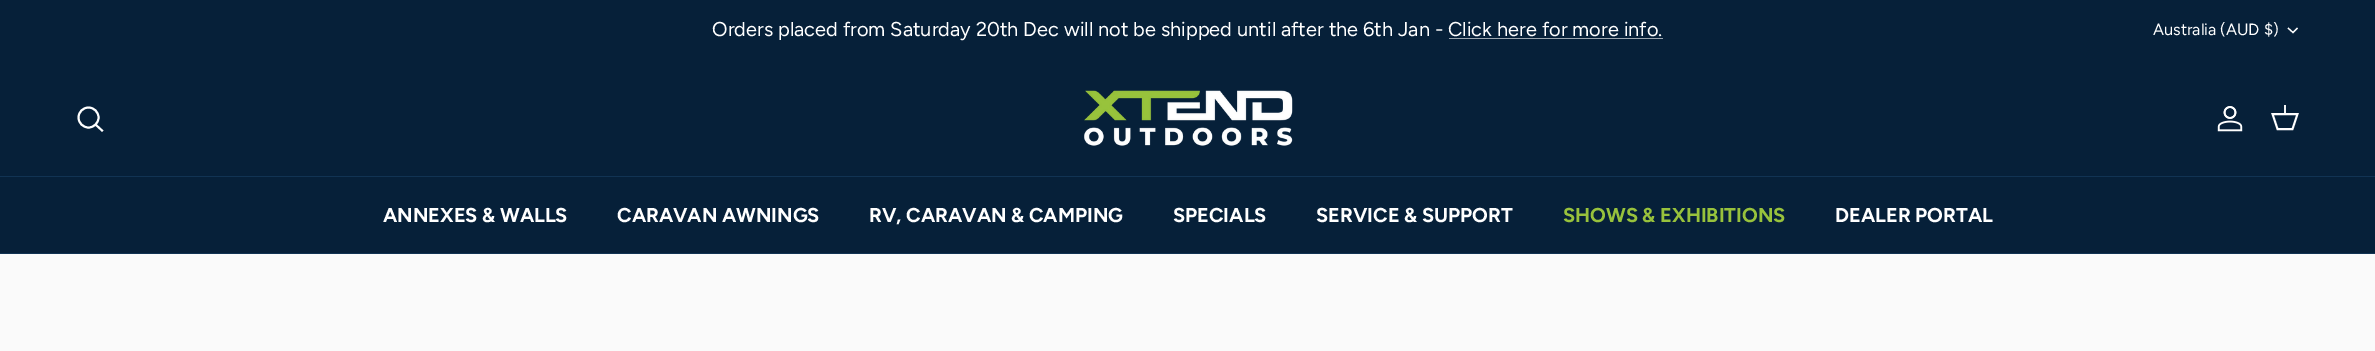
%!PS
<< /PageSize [2375 351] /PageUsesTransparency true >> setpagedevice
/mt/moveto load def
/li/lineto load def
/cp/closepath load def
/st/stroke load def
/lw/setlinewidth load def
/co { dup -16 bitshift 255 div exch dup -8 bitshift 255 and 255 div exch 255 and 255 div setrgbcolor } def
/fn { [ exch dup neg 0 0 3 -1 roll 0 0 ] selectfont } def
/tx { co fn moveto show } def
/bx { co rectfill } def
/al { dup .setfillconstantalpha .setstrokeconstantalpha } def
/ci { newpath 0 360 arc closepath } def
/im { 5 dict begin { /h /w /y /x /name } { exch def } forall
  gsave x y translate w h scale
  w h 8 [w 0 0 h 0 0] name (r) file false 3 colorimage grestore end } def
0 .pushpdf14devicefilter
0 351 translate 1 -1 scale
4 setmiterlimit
0 0 2375 351 16#FAFAFA bx
0 0 2375 253 16#062039 bx
16#FFFFFF co
1.2 lw
2297.5 28 mt 2293 32.5 li 2288 28 li st
0 176 2375 1 16#113353 bx
16#FFFFFF co
1.9 lw
88.5 117.5 10 ci st
2 setlinecap
96 125 mt 102 130.5 li st
(media/1.raw) 1084 90 209 56 im
(media/2.raw) 2217 106 26 26 im
0 setlinecap
2272.5 114 mt 2297.5 114 li 2292.5 129 li 2277.5 129 li cp st
0.95 al
2284 105 2 10 16#FFFFFF bx
1 al
0 253 2375 1 16#113353 bx
(Orders placed from Saturday 20th Dec will not be shipped until after the 6th Jan - Click here for more info.) 712 36 /Figtree-Regular 20 16#FFFFFF tx
1449 38 214 1 16#9BA6B0 bx
(Australia \(AUD $\)) 2153 35 /Figtree-Regular 16.25 16#FFFFFF tx
(ANNEXES & WALLS) 383 222 /Figtree-Bold 20 16#FFFFFF tx
(CARAVAN AWNINGS) 617 222 /Figtree-Bold 20 16#FFFFFF tx
(RV, CARAVAN & CAMPING) 869 222 /Figtree-Bold 20 16#FFFFFF tx
(SPECIALS) 1173 222 /Figtree-Bold 20 16#FFFFFF tx
(SERVICE & SUPPORT) 1316 222 /Figtree-Bold 20 16#FFFFFF tx
(SHOWS & EXHIBITIONS) 1563 222 /Figtree-Bold 20 16#98C23C tx
(DEALER PORTAL) 1835 222 /Figtree-Bold 20 16#FFFFFF tx
.poppdf14devicefilter showpage
